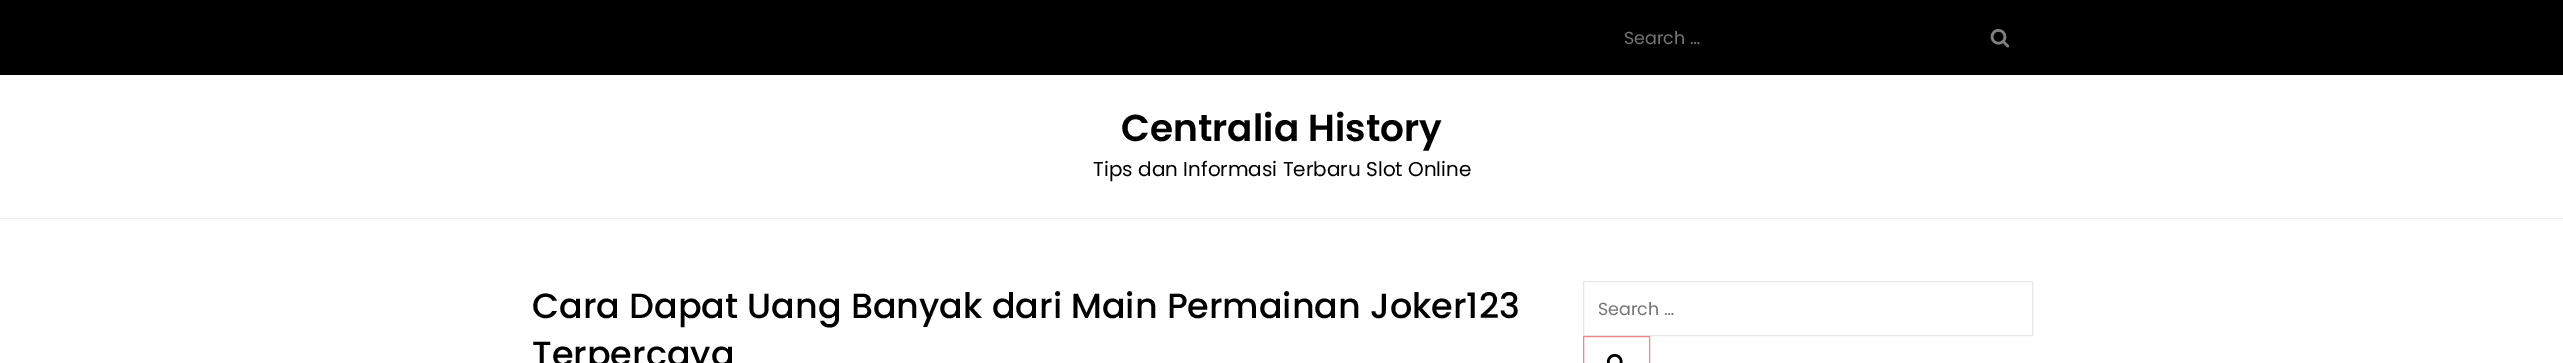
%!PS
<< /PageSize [2563 363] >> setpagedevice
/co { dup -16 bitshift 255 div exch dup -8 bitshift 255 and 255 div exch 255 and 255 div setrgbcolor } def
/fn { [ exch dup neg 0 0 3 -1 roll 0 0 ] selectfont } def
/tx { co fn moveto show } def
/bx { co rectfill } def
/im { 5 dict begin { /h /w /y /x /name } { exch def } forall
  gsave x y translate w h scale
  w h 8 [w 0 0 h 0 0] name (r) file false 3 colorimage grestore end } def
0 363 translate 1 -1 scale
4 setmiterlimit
0 0 2563 363 16#FFFFFF bx
0 0 2563 75 16#000000 bx
(media/1.raw) 1990 28 20 20 im
0 218 2563 1 16#EEEEEE bx
16#E7E7E7 co
1583.5 281.5 449 54 rectstroke
16#F1868A co
1583.5 336.5 66 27 rectstroke
(media/2.raw) 1606 353 17 10 im
(Search …) 1624 44 /Poppins-Regular 17.5 16#757575 tx
(Centralia History) 1121 141 /Poppins-SemiBold 37.5 16#000000 tx
(Tips dan Informasi Terbaru Slot Online) 1093 176 /Poppins-Regular 20 16#000000 tx
(Cara Dapat Uang Banyak dari Main Permainan Joker123) 532 318 /Poppins-Medium 35 16#000000 tx
(Terpercaya) 532 366 /Poppins-Medium 35 16#000000 tx
(Search …) 1598 315 /Poppins-Regular 17.5 16#757575 tx
showpage
